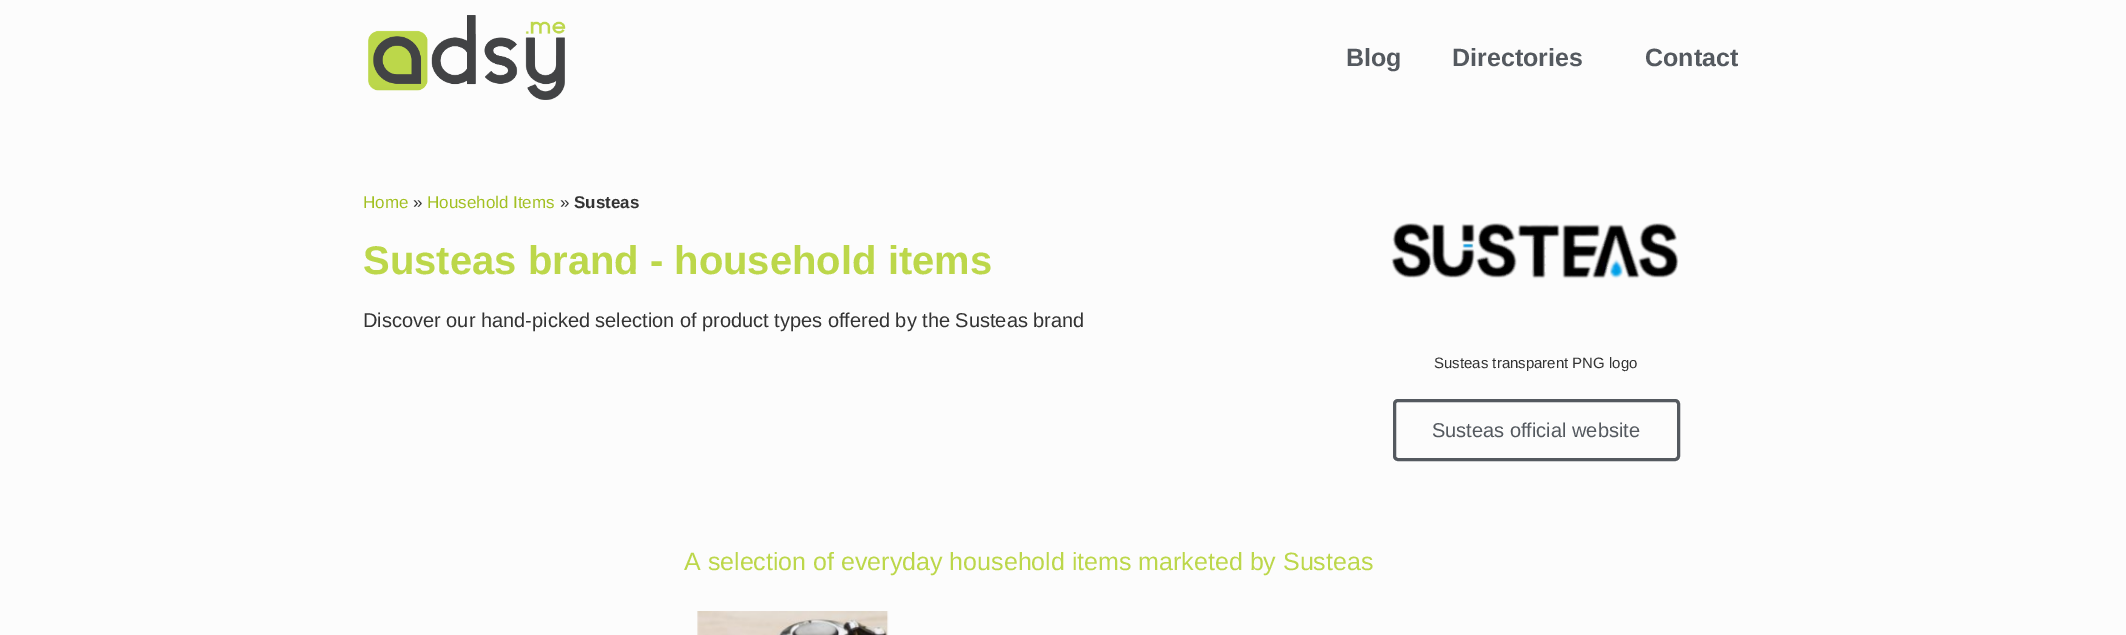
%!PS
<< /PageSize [2126 635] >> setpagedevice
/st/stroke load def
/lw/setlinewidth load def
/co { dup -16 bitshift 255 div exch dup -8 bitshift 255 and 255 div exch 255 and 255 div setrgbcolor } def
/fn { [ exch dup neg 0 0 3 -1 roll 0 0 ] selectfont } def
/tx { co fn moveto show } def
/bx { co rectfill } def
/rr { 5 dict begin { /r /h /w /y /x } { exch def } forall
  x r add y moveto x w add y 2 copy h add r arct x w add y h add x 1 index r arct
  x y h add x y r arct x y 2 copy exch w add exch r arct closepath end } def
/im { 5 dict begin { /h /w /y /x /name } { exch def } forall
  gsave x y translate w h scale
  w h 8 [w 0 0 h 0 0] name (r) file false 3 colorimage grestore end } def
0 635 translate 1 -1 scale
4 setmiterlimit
0 0 2126 635 16#FCFCFC bx
(media/1.raw) 368 15 198 85 im
(media/2.raw) 1391 223 288 56 im
16#54595F co
3 lw
1394.5 400.5 284 59 3.5 rr st
(media/3.raw) 697 611 192 24 im
(Blog) 1346 66 /LiberationSans-Bold 25 16#54595F tx
(Directories) 1452 66 /LiberationSans-Bold 25 16#54595F tx
(Contact) 1645 66 /LiberationSans-Bold 25 16#54595F tx
(Home) 363 208 /LiberationSans-Regular 17 16#A2C021 tx
(») 413 208 /LiberationSans-Regular 17 16#333333 tx
(Household Items) 427 208 /LiberationSans-Regular 17 16#A2C021 tx
(») 560 208 /LiberationSans-Regular 17 16#333333 tx
(Susteas) 574 208 /LiberationSans-Bold 17 16#333333 tx
(Susteas brand - household items) 363 274 /LiberationSans-Bold 40 16#BCD74A tx
(Discover our hand-picked selection of product types offered by the Susteas brand) 363 327 /LiberationSans-Regular 20 16#333333 tx
(Susteas transparent PNG logo) 1434 368 /LiberationSans-Regular 15 16#333333 tx
(Susteas official website) 1432 437 /LiberationSans-Regular 20 16#54595F tx
(A selection of everyday household items marketed by Susteas) 684 570 /LiberationSans-Regular 25 16#BCD74A tx
showpage
